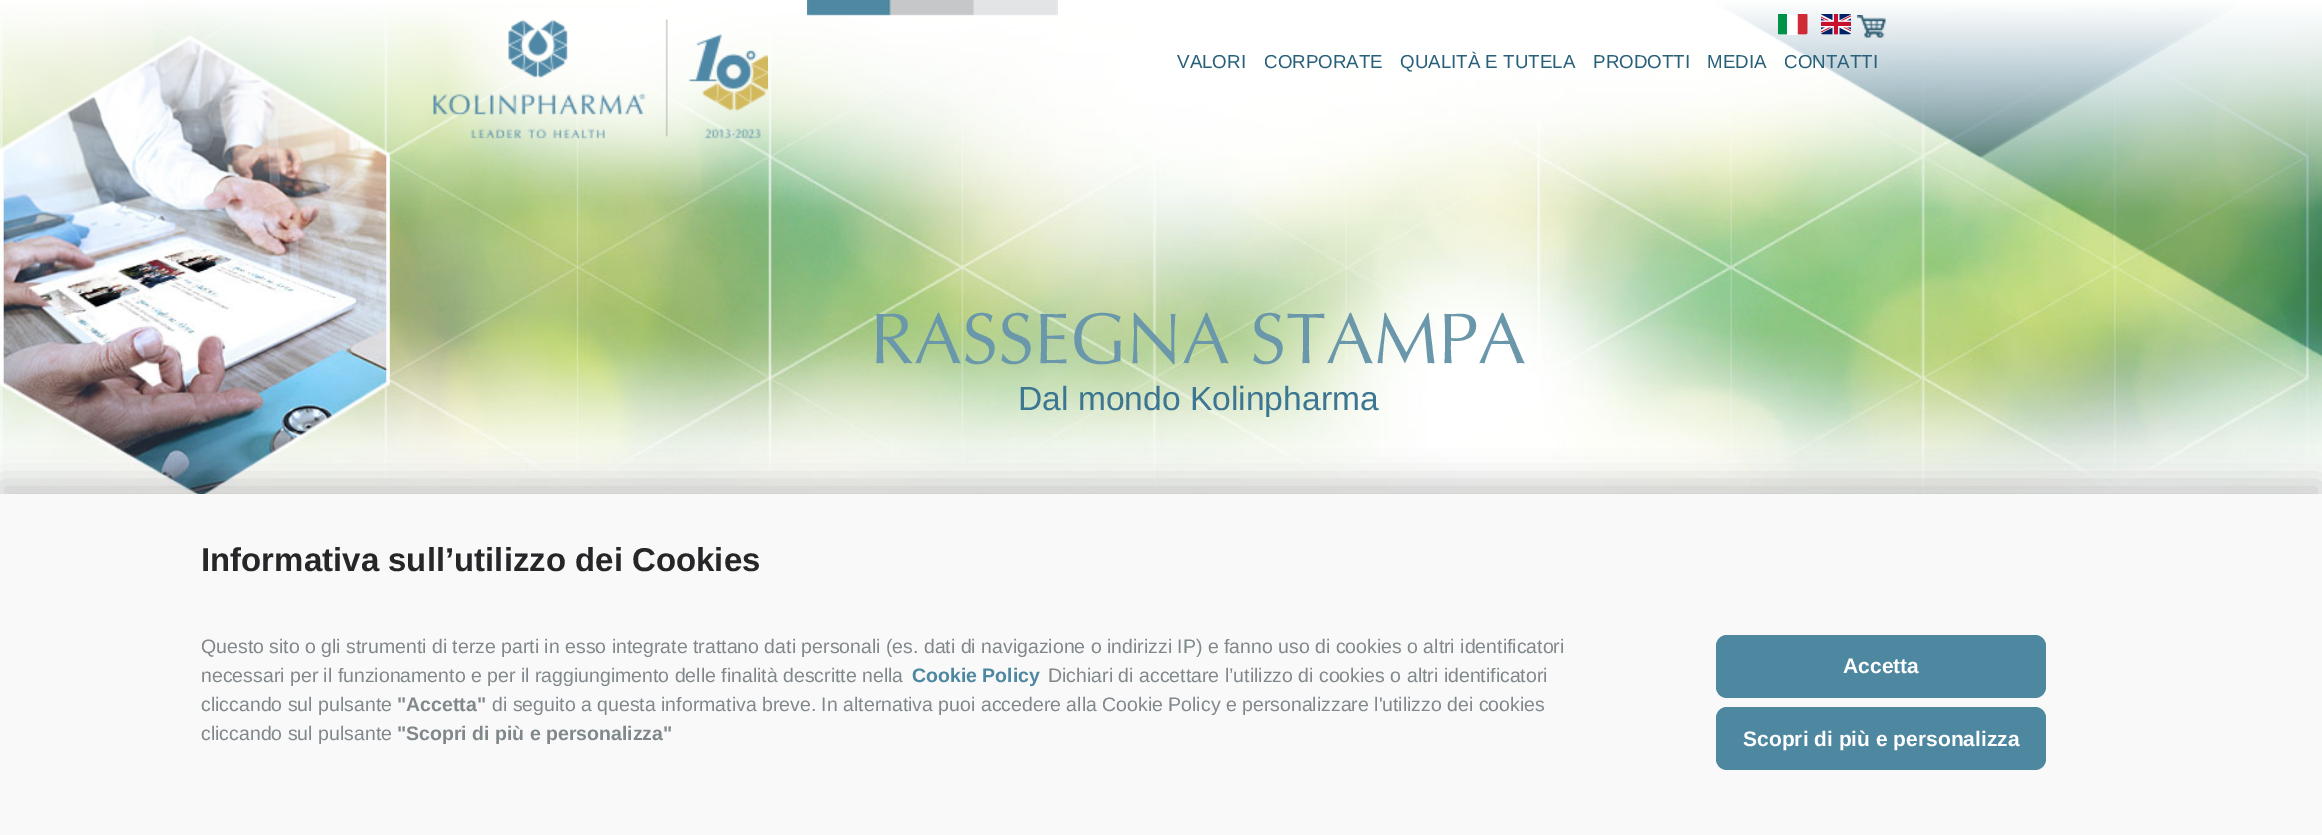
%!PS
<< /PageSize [2322 835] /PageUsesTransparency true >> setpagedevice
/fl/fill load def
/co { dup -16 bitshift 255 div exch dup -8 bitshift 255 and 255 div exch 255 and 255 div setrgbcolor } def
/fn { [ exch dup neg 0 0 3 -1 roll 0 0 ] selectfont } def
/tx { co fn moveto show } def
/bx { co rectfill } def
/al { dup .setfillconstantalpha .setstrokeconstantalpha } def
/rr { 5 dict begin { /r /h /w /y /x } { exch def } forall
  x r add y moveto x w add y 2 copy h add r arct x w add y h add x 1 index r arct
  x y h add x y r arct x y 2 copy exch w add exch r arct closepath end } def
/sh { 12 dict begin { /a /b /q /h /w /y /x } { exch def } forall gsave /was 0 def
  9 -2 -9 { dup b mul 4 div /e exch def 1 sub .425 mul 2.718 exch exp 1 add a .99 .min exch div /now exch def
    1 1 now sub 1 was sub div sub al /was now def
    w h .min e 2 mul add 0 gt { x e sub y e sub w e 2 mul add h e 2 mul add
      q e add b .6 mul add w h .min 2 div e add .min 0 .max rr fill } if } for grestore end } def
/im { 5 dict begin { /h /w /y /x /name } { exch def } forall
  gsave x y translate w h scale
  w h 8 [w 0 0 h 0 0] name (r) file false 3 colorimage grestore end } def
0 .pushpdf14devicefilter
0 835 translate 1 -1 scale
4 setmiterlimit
0 0 2322 835 16#FFFFFF bx
(media/6.raw) 0 0 2322 494 im
(media/1.raw) 433 9 335 186 im
(media/2.raw) 807 0 251 16 im
(media/3.raw) 1778 14 30 21 im
(media/4.raw) 1821 14 30 21 im
(media/5.raw) 1857 15 29 23 im
16#000000 co
0 482 2322 342 0 15 .2 sh
0 494 2322 341 16#F9F9F9 bx
16#4E87A0 co
1716 635 330 63 11 rr fl
1716 707 330 63 11 rr fl
(VALORI) 1177 68 /LiberationSans-Regular 18.75 16#296079 tx
(CORPORATE) 1264 68 /LiberationSans-Regular 18.75 16#296079 tx
(QUALITÀ E TUTELA) 1400 68 /LiberationSans-Regular 18.75 16#296079 tx
(PRODOTTI) 1593 68 /LiberationSans-Regular 18.75 16#296079 tx
(MEDIA) 1707 68 /LiberationSans-Regular 18.75 16#296079 tx
(CONTATTI) 1784 68 /LiberationSans-Regular 18.75 16#296079 tx
(RASSEGNA STAMPA) 870 363 /Optima-Regular 72 16#6B97AA tx
(Dal mondo Kolinpharma) 1018 410 /LiberationSans-Regular 33.6 16#3C7690 tx
(Informativa sull’utilizzo dei Cookies) 201 571 /LiberationSans-Bold 33 16#262628 tx
(Questo sito o gli strumenti di terze parti in esso integrate trattano dati personali \(es. dati di navigazione o indirizzi IP\) e fanno uso di cookies o altri identificatori) 201 653 /LiberationSans-Regular 19.5 16#80888C tx
(necessari per il funzionamento e per il raggiungimento delle finalità descritte nella) 201 682 /LiberationSans-Regular 19.5 16#80888C tx
(Cookie Policy) 912 682 /LiberationSans-Bold 19.5 16#4E87A0 tx
(Dichiari di accettare l’utilizzo di cookies o altri identificatori) 1048 682 /LiberationSans-Regular 19.5 16#80888C tx
(cliccando sul pulsante) 201 711 /LiberationSans-Regular 19.5 16#80888C tx
("Accetta") 397 711 /LiberationSans-Bold 19.5 16#80888C tx
(di seguito a questa informativa breve. In alternativa puoi accedere alla Cookie Policy e personalizzare l'utilizzo dei cookies) 492 711 /LiberationSans-Regular 19.5 16#80888C tx
(cliccando sul pulsante) 201 740 /LiberationSans-Regular 19.5 16#80888C tx
("Scopri di più e personalizza") 397 740 /LiberationSans-Bold 19.5 16#80888C tx
(Accetta) 1843 673 /LiberationSans-Bold 21 16#FFFFFF tx
(Scopri di più e personalizza) 1743 746 /LiberationSans-Bold 21 16#FFFFFF tx
.poppdf14devicefilter showpage
